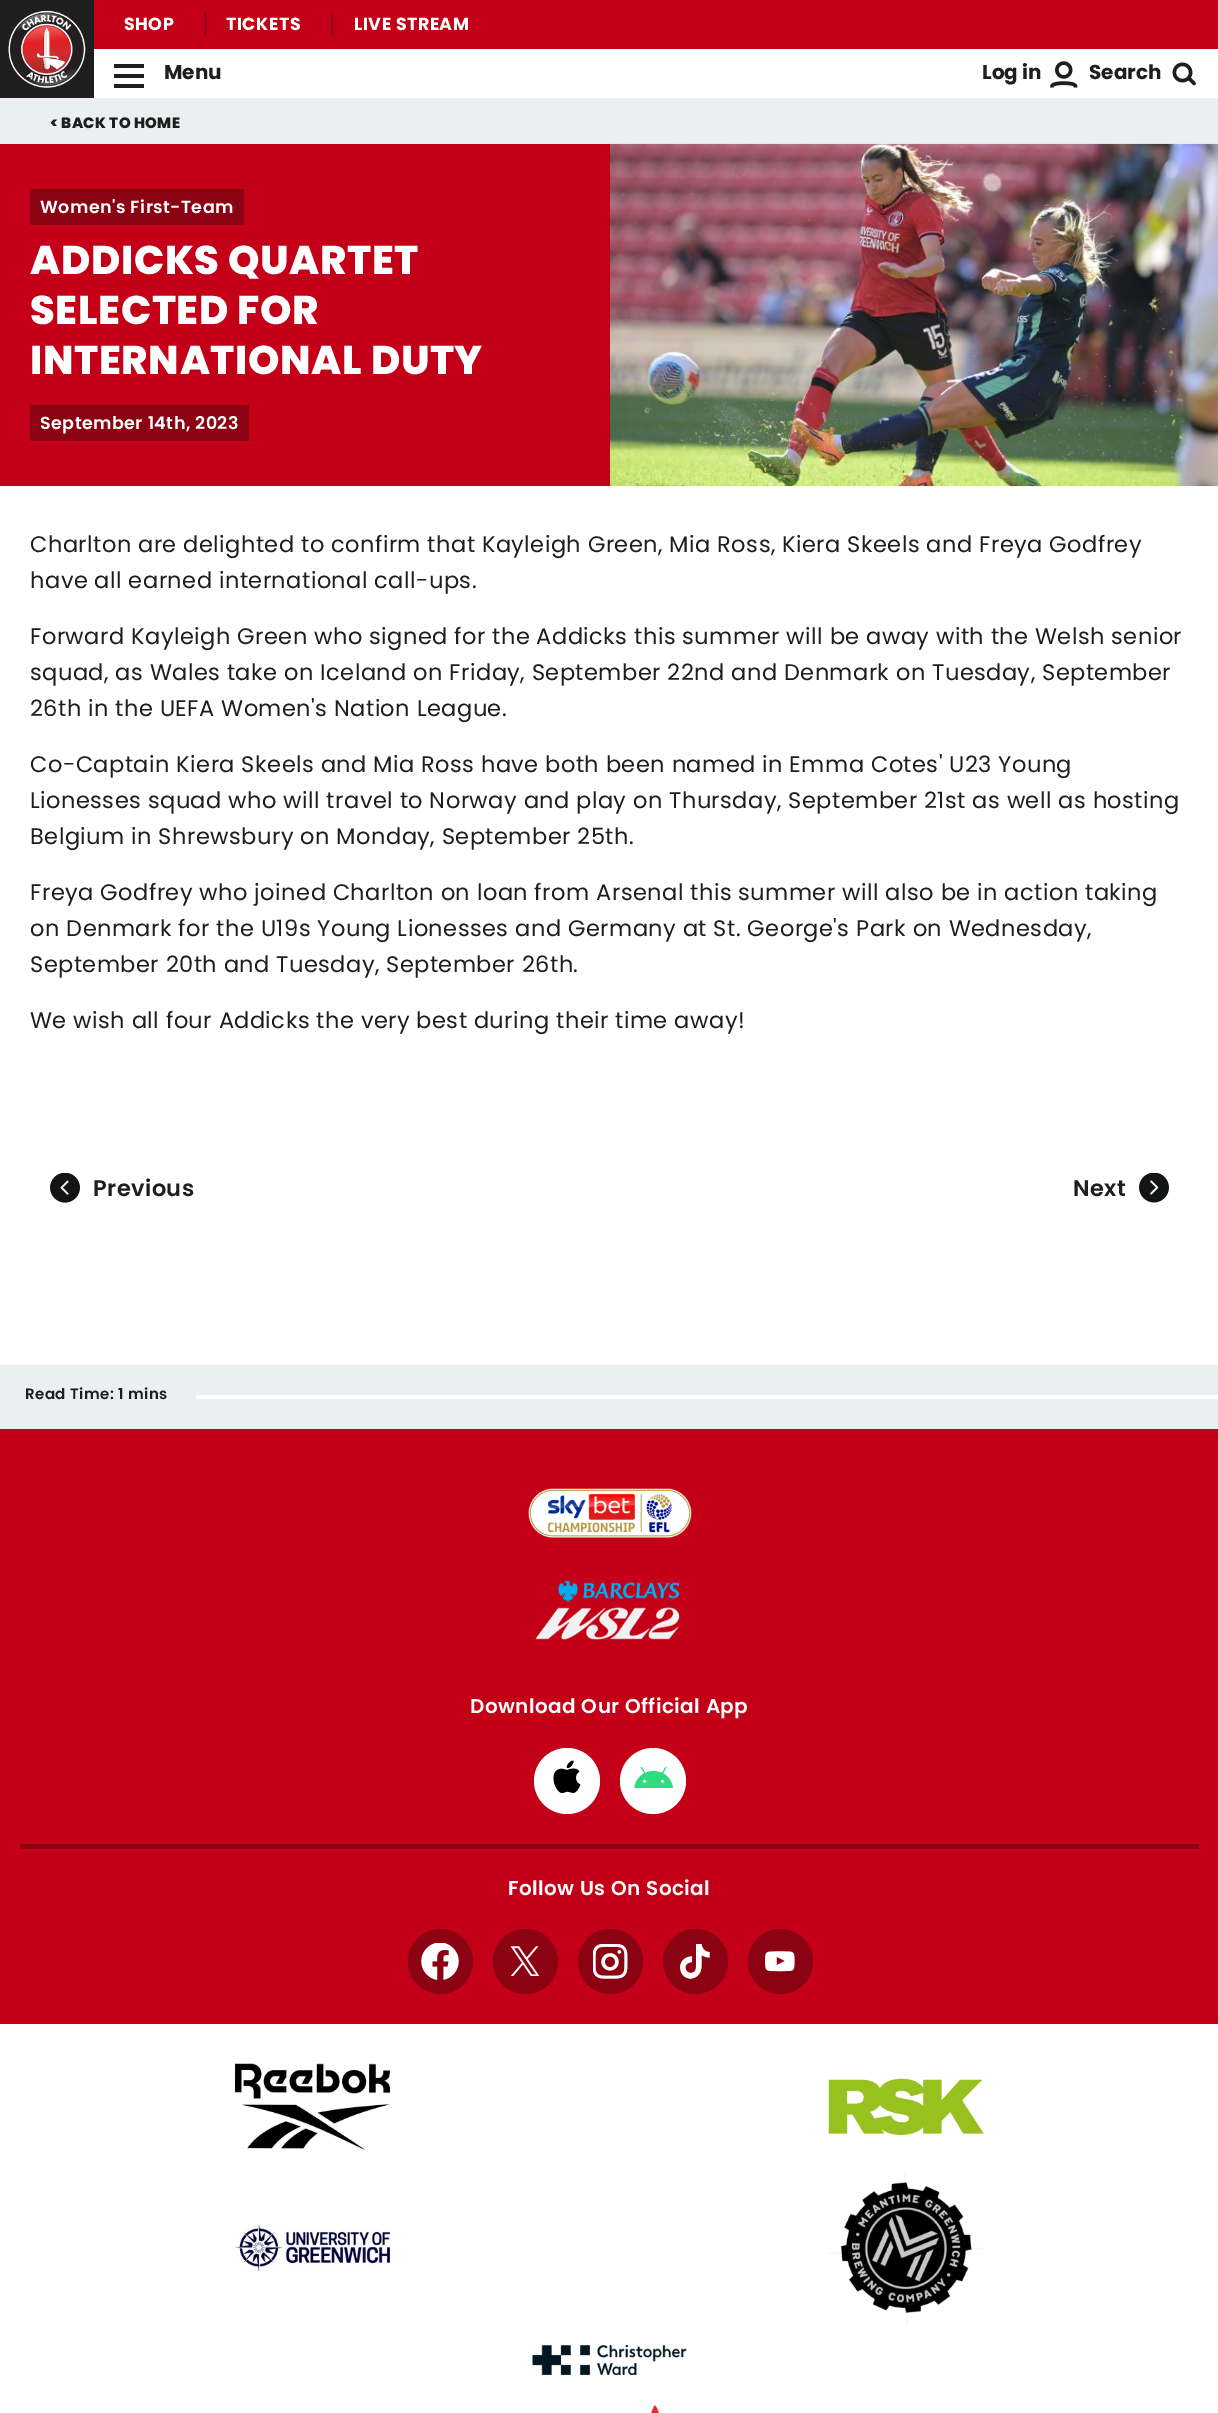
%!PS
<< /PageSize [1218 2413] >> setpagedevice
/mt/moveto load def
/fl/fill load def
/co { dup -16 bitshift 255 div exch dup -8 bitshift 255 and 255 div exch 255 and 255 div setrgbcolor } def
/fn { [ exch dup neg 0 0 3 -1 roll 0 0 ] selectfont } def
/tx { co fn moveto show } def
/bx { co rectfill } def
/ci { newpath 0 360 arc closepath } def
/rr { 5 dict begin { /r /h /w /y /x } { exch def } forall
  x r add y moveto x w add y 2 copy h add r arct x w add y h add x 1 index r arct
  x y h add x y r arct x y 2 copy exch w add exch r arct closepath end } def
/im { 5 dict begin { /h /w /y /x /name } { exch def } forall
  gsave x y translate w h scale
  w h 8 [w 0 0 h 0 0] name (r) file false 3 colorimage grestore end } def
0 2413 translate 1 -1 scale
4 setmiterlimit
0 0 1218 2413 16#FFFFFF bx
0 0 94 98 16#1E1E1E bx
(media/1.raw) 8 10 78 78 im
94 0 1124 49 16#C30017 bx
204 11 3 25 16#9C0214 bx
331 11 3 25 16#9C0214 bx
114 74 30 4 16#1E1E1E bx
114 64 30 4 16#1E1E1E bx
114 84 30 4 16#1E1E1E bx
(media/2.raw) 1050 61 28 27 im
(media/3.raw) 1172 62 24 24 im
0 98 1218 46 16#EAF0F2 bx
0 144 610 342 16#C30017 bx
30 189 214 36 16#8B0212 bx
30 405 219 36 16#8B0212 bx
(media/4.raw) 610 143 608 344 im
(media/5.raw) 50 1173 30 30 im
(media/6.raw) 1139 1173 30 30 im
0 1365 1218 64 16#EAF0F2 bx
16#FFFFFF co
196 1395 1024 4 2 rr fl
0 1429 1218 595 16#C30017 bx
(media/7.raw) 528 1488 164 50 im
(media/8.raw) 535 1580 145 60 im
16#FFFFFF co
567 1781 33 ci fl
(media/9.raw) 553 1760 28 34 im
653 1781 33 ci fl
(media/10.raw) 634 1766 39 23 im
20 1844 1179 5 16#8B0212 bx
440.5 1961.5 32.5 ci fl
(media/11.raw) 421 1943 38 37 im
525.5 1961.5 32.5 ci fl
(media/12.raw) 510 1946 30 30 im
610.5 1961.5 32.5 ci fl
(media/13.raw) 593 1944 35 35 im
695.5 1961.5 32.5 ci fl
(media/14.raw) 680 1944 30 35 im
780.5 1961.5 32.5 ci fl
(media/15.raw) 765 1951 30 21 im
(media/16.raw) 235 2063 155 87 im
(media/17.raw) 828 2078 156 57 im
(media/18.raw) 235 2224 155 48 im
(media/19.raw) 829 2170 155 155 im
(media/20.raw) 532 2345 155 30 im
(media/21.raw) 644 2405 23 8 im
/Poppins-Bold 17.5 fn
16#FFFFFF co
124 30 mt .45 0 (SHOP) ashow
226 30 mt .45 0 (TICKETS) ashow
354 30 mt .45 0 (LIVE STREAM) ashow
(Menu) 164 79 /Poppins-Bold 20 16#1E1E1E tx
(Log in) 982 79 /Poppins-Bold 20 16#1E1E1E tx
(Search) 1089 79 /Poppins-Bold 20 16#1E1E1E tx
/Poppins-ExtraBold 15 fn
50 128 mt .3 0 (< BACK TO HOME) ashow
/Poppins-SemiBold 17.5 fn
16#FFFFFF co
40 213 mt .45 0 (Women's First-Team) ashow
/Poppins-ExtraBold 40 fn
30 274 mt .6 0 (ADDICKS QUARTET) ashow
30 324 mt .6 0 (SELECTED FOR) ashow
30 374 mt .6 0 (INTERNATIONAL DUTY) ashow
/Poppins-SemiBold 17.5 fn
40 429 mt .45 0 (September 14th, 2023) ashow
/Poppins-Regular 22.5 fn
16#1E1E1E co
30 552 mt .45 0 (Charlton are delighted to confirm that Kayleigh Green, Mia Ross, Kiera Skeels and Freya Godfrey) ashow
30 588 mt .45 0 (have all earned international call-ups.) ashow
30 644 mt .45 0 (Forward Kayleigh Green who signed for the Addicks this summer will be away with the Welsh senior) ashow
30 680 mt .45 0 (squad, as Wales take on Iceland on Friday, September 22nd and Denmark on Tuesday, September) ashow
30 716 mt .45 0 (26th in the UEFA Women's Nation League.) ashow
30 772 mt .45 0 (Co-Captain Kiera Skeels and Mia Ross have both been named in Emma Cotes' U23 Young) ashow
30 808 mt .45 0 (Lionesses squad who will travel to Norway and play on Thursday, September 21st as well as hosting) ashow
30 844 mt .45 0 (Belgium in Shrewsbury on Monday, September 25th.) ashow
30 900 mt .45 0 (Freya Godfrey who joined Charlton on loan from Arsenal this summer will also be in action taking) ashow
30 936 mt .45 0 (on Denmark for the U19s Young Lionesses and Germany at St. George's Park on Wednesday,) ashow
30 972 mt .45 0 (September 20th and Tuesday, September 26th.) ashow
30 1028 mt .45 0 (We wish all four Addicks the very best during their time away!) ashow
/Poppins-SemiBold 22.5 fn
93 1196 mt .45 0 (Previous) ashow
1073 1196 mt .45 0 (Next) ashow
/Poppins-SemiBold 15 fn
25 1399 mt .45 0 (Read Time: 1 mins) ashow
/Poppins-SemiBold 20 fn
16#FFFFFF co
470 1713 mt .45 0 (Download Our Official App) ashow
508 1895 mt .45 0 (Follow Us On Social) ashow
showpage
